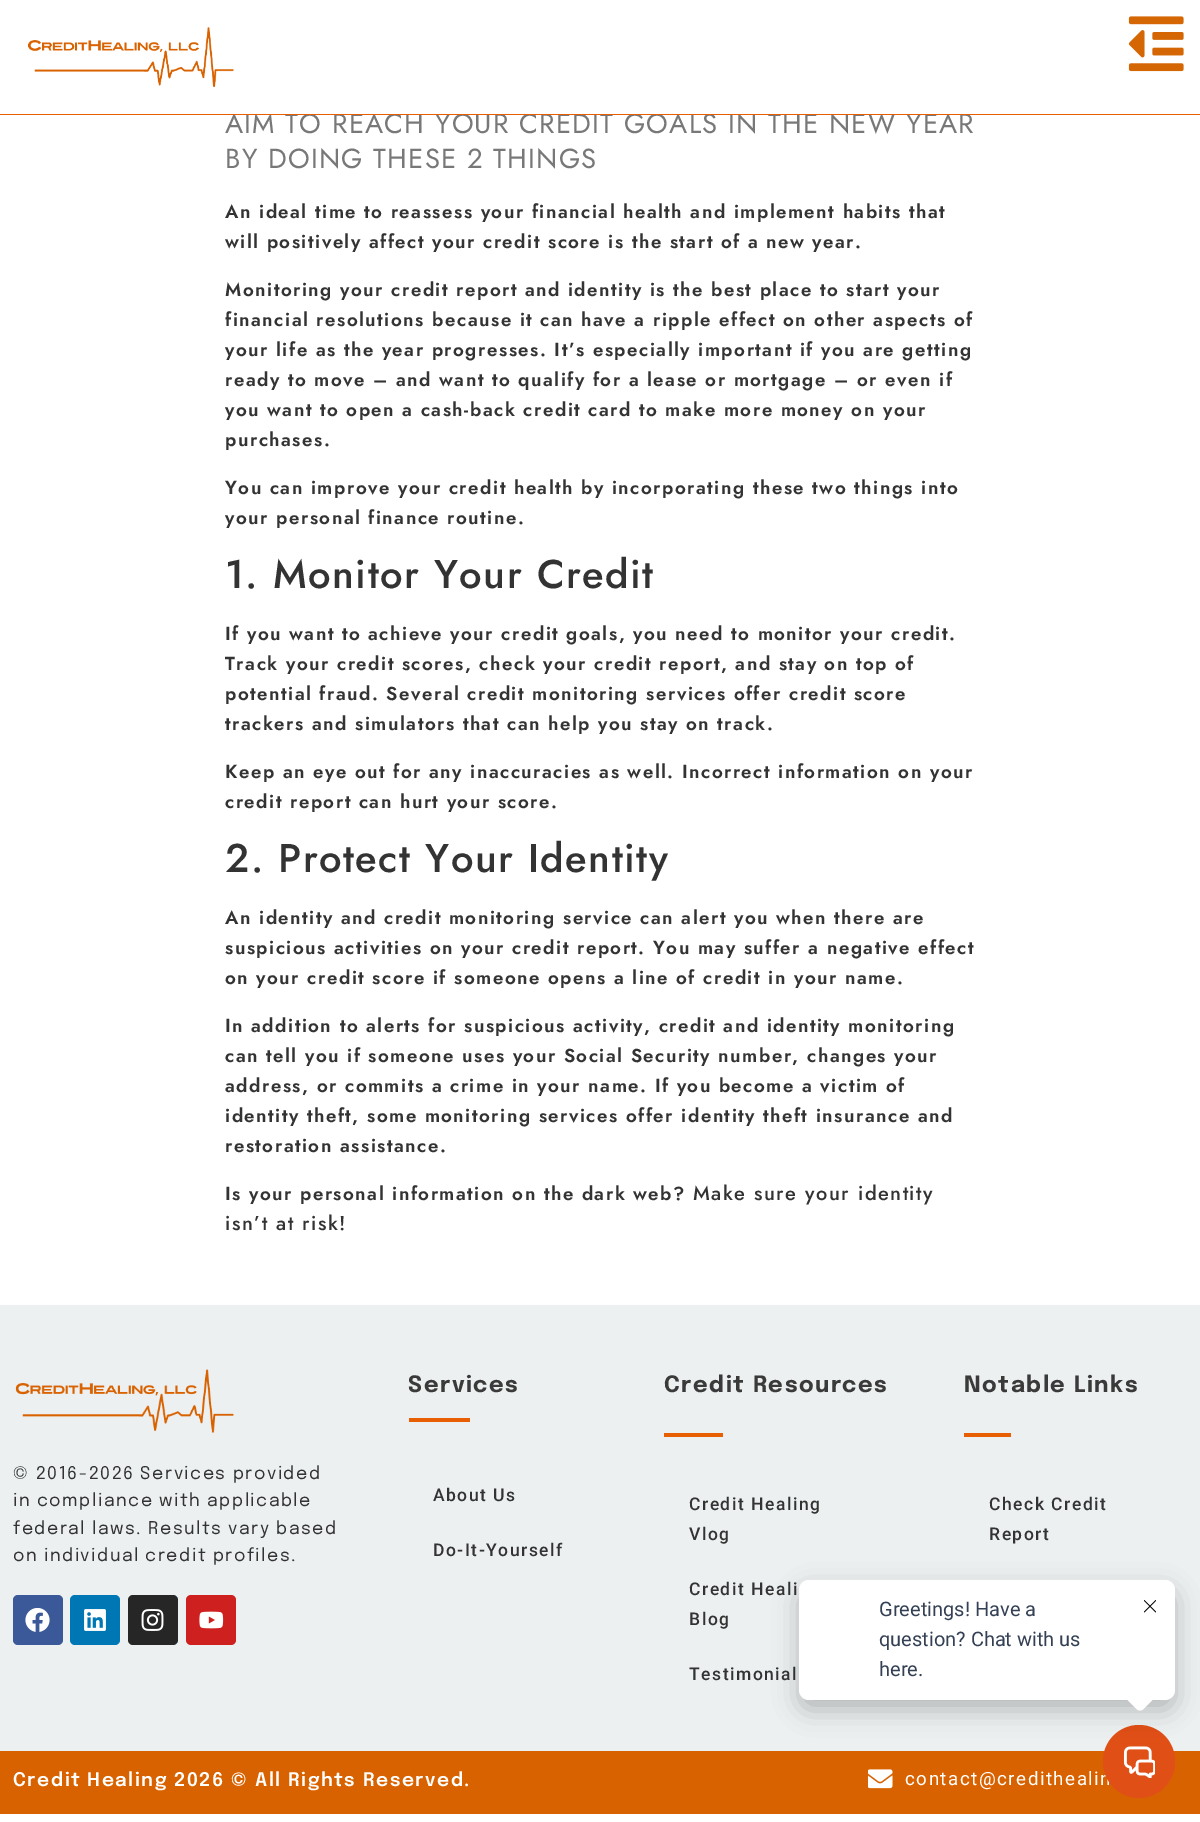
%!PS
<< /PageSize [1200 1822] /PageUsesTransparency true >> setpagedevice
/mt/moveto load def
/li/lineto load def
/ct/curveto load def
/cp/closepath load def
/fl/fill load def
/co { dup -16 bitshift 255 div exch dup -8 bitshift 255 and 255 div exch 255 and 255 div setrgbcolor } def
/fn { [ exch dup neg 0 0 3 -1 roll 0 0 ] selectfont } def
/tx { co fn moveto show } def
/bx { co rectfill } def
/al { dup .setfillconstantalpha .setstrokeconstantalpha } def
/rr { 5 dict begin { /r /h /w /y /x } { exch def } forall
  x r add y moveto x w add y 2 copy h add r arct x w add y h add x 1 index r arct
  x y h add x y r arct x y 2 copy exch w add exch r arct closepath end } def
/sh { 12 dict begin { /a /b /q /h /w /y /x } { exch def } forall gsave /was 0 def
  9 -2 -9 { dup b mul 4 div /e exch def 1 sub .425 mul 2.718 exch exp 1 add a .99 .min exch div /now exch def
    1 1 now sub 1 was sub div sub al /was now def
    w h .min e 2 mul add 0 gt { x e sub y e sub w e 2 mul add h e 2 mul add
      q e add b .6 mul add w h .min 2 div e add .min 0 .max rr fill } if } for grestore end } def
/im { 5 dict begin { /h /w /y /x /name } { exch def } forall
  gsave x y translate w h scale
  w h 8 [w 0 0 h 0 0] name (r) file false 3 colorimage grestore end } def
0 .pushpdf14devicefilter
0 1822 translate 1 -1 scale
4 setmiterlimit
0 0 1200 1822 16#FFFFFF bx
(media/1.raw) 27 27 207 61 im
(media/2.raw) 1128 16 56 56 im
0 1305 1200 446 16#ECF0F1 bx
(media/3.raw) 15 1369 219 64 im
16#3B5998 co
13 1595 50 50 5 rr fl
(media/4.raw) 25 1608 25 24 im
16#0077B5 co
70 1595 50 50 5 rr fl
(media/5.raw) 84 1609 22 22 im
16#262626 co
128 1595 50 50 5 rr fl
(media/6.raw) 141 1609 23 22 im
16#CD201F co
186 1595 50 50 5 rr fl
(media/7.raw) 199 1611 25 18 im
409 1418 61 4 16#E85E02 bx
664 1433 59 4 16#E85E02 bx
964 1433 47 4 16#E85E02 bx
0 1751 1200 63 16#D86200 bx
(media/10.raw) 868 1769 25 20 im
/Jost-Regular 27.5 fn
16#787878 co
225 133 mt 1.25 0 (AIM TO REACH YOUR CREDIT GOALS IN THE NEW YEAR) ashow
0 114 1200 1 16#E85E02 bx
233 112 735 2 16#FFFFFF bx
16#787878 co
225 168 mt 1.25 0 (BY DOING THESE 2 THINGS) ashow
/Jost-SemiBold 18.75 fn
16#333333 co
225 218 mt 1.5 0 (An ideal time to reassess your financial health and implement habits that) ashow
225 248 mt 1.5 0 (will positively affect your credit score is the start of a new year.) ashow
225 296 mt 1.5 0 (Monitoring your credit report and identity is the best place to start your) ashow
225 326 mt 1.5 0 (financial resolutions because it can have a ripple effect on other aspects of) ashow
225 356 mt 1.5 0 (your life as the year progresses. It’s especially important if you are getting) ashow
225 386 mt 1.5 0 (ready to move – and want to qualify for a lease or mortgage – or even if) ashow
225 416 mt 1.5 0 (you want to open a cash-back credit card to make more money on your) ashow
225 446 mt 1.5 0 (purchases.) ashow
225 494 mt 1.5 0 (You can improve your credit health by incorporating these two things into) ashow
225 524 mt 1.5 0 (your personal finance routine.) ashow
/Jost-Medium 40 fn
225 588 mt 1.5 0 (1. Monitor Your Credit) ashow
/Jost-SemiBold 18.75 fn
225 640 mt 1.5 0 (If you want to achieve your credit goals, you need to monitor your credit.) ashow
225 670 mt 1.5 0 (Track your credit scores, check your credit report, and stay on top of) ashow
225 700 mt 1.5 0 (potential fraud. Several credit monitoring services offer credit score) ashow
225 730 mt 1.5 0 (trackers and simulators that can help you stay on track.) ashow
225 778 mt 1.5 0 (Keep an eye out for any inaccuracies as well. Incorrect information on your) ashow
225 808 mt 1.5 0 (credit report can hurt your score.) ashow
/Jost-Medium 40 fn
225 872 mt 1.5 0 (2. Protect Your Identity) ashow
/Jost-SemiBold 18.75 fn
225 924 mt 1.5 0 (An identity and credit monitoring service can alert you when there are) ashow
225 954 mt 1.5 0 (suspicious activities on your credit report. You may suffer a negative effect) ashow
225 984 mt 1.5 0 (on your credit score if someone opens a line of credit in your name.) ashow
225 1032 mt 1.5 0 (In addition to alerts for suspicious activity, credit and identity monitoring) ashow
225 1062 mt 1.5 0 (can tell you if someone uses your Social Security number, changes your) ashow
225 1092 mt 1.5 0 (address, or commits a crime in your name. If you become a victim of) ashow
225 1122 mt 1.5 0 (identity theft, some monitoring services offer identity theft insurance and) ashow
225 1152 mt 1.5 0 (restoration assistance.) ashow
225 1200 mt 1.5 0 (Is your personal information on the dark web?) ashow
/Jost-Medium 20 fn
693 1200 mt 1.5 0 (Make sure your identity) ashow
225 1230 mt 1.5 0 (isn’t at risk!) ashow
/Epilogue-Regular 17.5 fn
13 1479 mt 1.5 0 (© 2016-2026 Services provided) ashow
13 1506 mt 1.5 0 (in compliance with applicable) ashow
13 1534 mt 1.5 0 (federal laws. Results vary based) ashow
13 1561 mt 1.5 0 (on individual credit profiles.) ashow
/Epilogue-Bold 22.5 fn
16#3A3A3A co
408 1392 mt 1.5 0 (Services) ashow
/Roboto-Medium 17.5 fn
16#333333 co
433 1501 mt 1.5 0 (About Us) ashow
433 1556 mt 1.5 0 (Do-It-Yourself) ashow
/Epilogue-Bold 22.5 fn
16#3A3A3A co
664 1392 mt 1.5 0 (Credit Resources) ashow
/Roboto-Medium 17.5 fn
16#333333 co
689 1510 mt 1.5 0 (Credit Healing) ashow
689 1540 mt 1.5 0 (Vlog) ashow
689 1595 mt 1.5 0 (Credit Heali) ashow
689 1625 mt 1.5 0 (Blog) ashow
689 1680 mt 1.5 0 (Testimonial) ashow
/Epilogue-Bold 22.5 fn
16#3A3A3A co
964 1392 mt 1.5 0 (Notable Links) ashow
/Roboto-Medium 17.5 fn
16#333333 co
989 1510 mt 1.5 0 (Check Credit) ashow
989 1540 mt 1.5 0 (Report) ashow
/Epilogue-SemiBold 18.75 fn
16#FFFFFF co
13 1786 mt 1.5 0 (Credit Healing 2026 © All Rights Reserved.) ashow
/Roboto-Regular 18.75 fn
905 1785 mt 1.5 0 (contact@credithealin) ashow
16#E04F16 co
1103 1725 72 73 36 rr fl
(media/9.raw) 1123 1746 32 32 im
16#000000 co
799 1590 376 120 10 12.5 .24 sh
16#FFFFFF co
799 1580 376 120 10 rr fl
(media/8.raw) 1144 1600 12 13 im
(here.) 879 1676 /Roboto-Regular 20 16#344054 tx
(question? Chat with us) 879 1646 /Roboto-Regular 20 16#344054 tx
(Greetings! Have a) 879 1616 /Roboto-Regular 20 16#344054 tx
16#FFFFFF co
1143.5 1681 mt 1154 1691.5 li 1156 1693.5 1156 1696.5 1154 1698.5 ct 1143.5 1709 li 1141.5 1711 1138.5 1711 1136.5 1709 ct 1126 1698.5 li 1124 1696.5 1124 1693.5 1126 1691.5 ct 1136.5 1681 li 1138.5 1679 1141.5 1679 1143.5 1681 ct cp fl
.poppdf14devicefilter showpage
